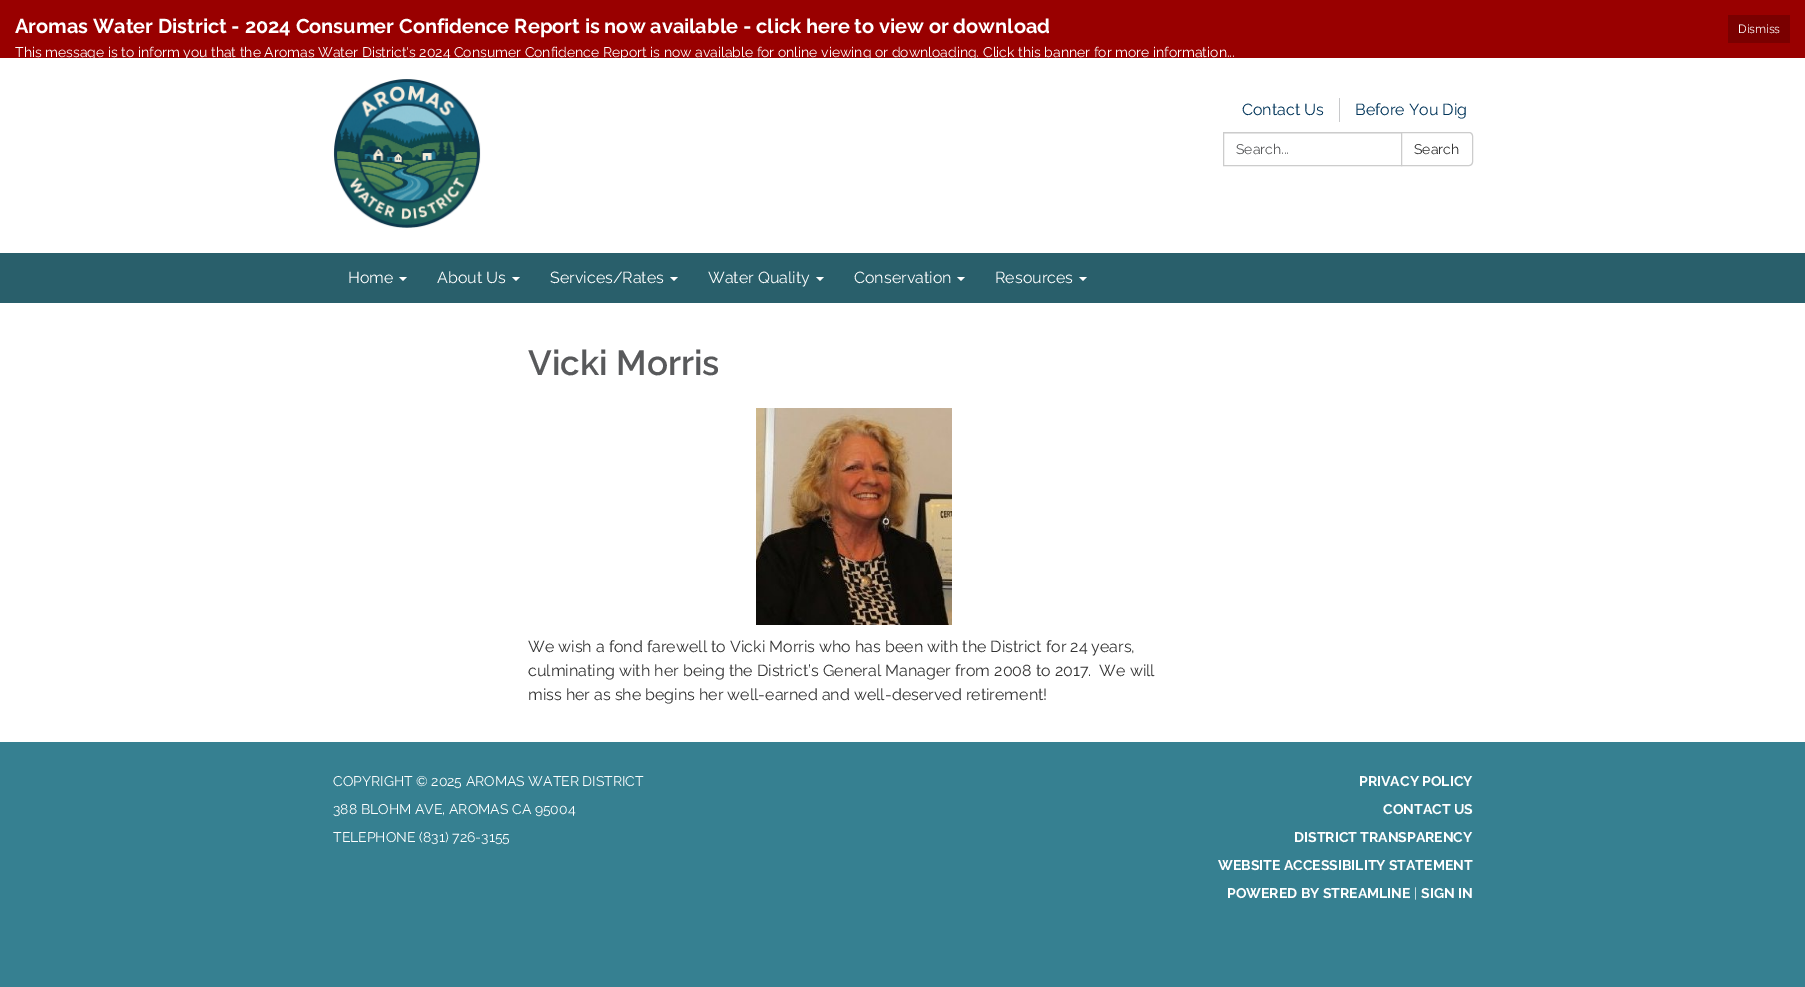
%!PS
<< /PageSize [1805 987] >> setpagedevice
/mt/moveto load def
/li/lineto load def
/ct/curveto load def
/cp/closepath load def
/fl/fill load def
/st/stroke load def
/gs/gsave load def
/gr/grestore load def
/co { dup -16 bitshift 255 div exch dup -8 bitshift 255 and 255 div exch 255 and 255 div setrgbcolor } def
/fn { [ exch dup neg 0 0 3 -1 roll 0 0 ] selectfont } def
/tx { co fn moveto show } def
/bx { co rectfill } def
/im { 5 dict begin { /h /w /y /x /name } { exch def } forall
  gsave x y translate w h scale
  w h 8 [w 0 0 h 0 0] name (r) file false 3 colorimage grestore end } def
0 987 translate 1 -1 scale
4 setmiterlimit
0 0 1805 987 16#368091 bx
0 0 1805 58 16#990000 bx
1728 15 62 28 16#7A0000 bx
0 58 1805 195 16#FFFFFF bx
(media/1.raw) 333 79 148 149 im
1339 98 1 24 16#C8C9CB bx
1224 133 177 1 16#ECECEC bx
16#CCCCCC co
1223.5 132.5 178 33 rectstroke
16#FFFFFF co
1401.5 132.5 mt 1469 132.5 li 1471 132.5 1472.5 134 1472.5 136 ct 1472.5 162 li 1472.5 164 1471 165.5 1469 165.5 ct 1401.5 165.5 li cp gs fl gr
16#CCCCCC co
st
0 253 1805 50 16#295F6B bx
16#FFFFFF co
399 277 mt 407 277 li 403 281 li cp fl
512 277 mt 520 277 li 516 281 li cp fl
670 277 mt 678 277 li 674 281 li cp fl
816 277 mt 824 277 li 820 281 li cp fl
957 277 mt 965 277 li 961 281 li cp fl
1079 277 mt 1087 277 li 1083 281 li cp fl
0 303 1805 439 16#FFFFFF bx
(media/2.raw) 756 408 196 217 im
(Aromas Water District - 2024 Consumer Confidence Report is now available - click here to view or download) 15 33 /Raleway-Bold 20 16#FFFFFF tx
(Dismiss) 1738 33 /Raleway-Regular 12 16#FFFFFF tx
gs
0 0 1805 58 rectclip
(This message is to inform you that the Aromas Water District's 2024 Consumer Confidence Report is now available for online viewing or downloading.) 15 57 /Raleway-Regular 14 16#FFFFFF tx
gr
(Click this banner for more information...) 983 57 /Raleway-Regular 14 16#FFFFFF tx
(Contact Us) 1242 115 /Raleway-Regular 16 16#003459 tx
(Before You Dig) 1355 115 /Raleway-Regular 16 16#003459 tx
(Search...) 1236 154 /Raleway-Regular 14 16#58595B tx
(Search) 1414 154 /Raleway-Regular 14 16#333333 tx
(Home) 348 283 /Raleway-Regular 16 16#FFFFFF tx
(About Us) 437 283 /Raleway-Regular 16 16#FFFFFF tx
(Services/Rates) 550 283 /Raleway-Regular 16 16#FFFFFF tx
(Water Quality) 708 283 /Raleway-Regular 16 16#FFFFFF tx
(Conservation) 854 283 /Raleway-Regular 16 16#FFFFFF tx
(Resources) 995 283 /Raleway-Regular 16 16#FFFFFF tx
(Vicki Morris) 528 375 /Raleway-SemiBold 35 16#58595B tx
(We wish a fond farewell to Vicki Morris who has been with the District for 24 years,) 528 652 /Raleway-Regular 16 16#333333 tx
(culminating with her being the District’s General Manager from 2008 to 2017.  We will) 528 676 /Raleway-Regular 16 16#333333 tx
(miss her as she begins her well-earned and well-deserved retirement!) 528 700 /Raleway-Regular 16 16#333333 tx
(COPYRIGHT © 2025 AROMAS WATER DISTRICT) 333 786 /Raleway-Regular 14 16#FFFFFF tx
(388 BLOHM AVE, AROMAS CA 95004) 333 814 /Raleway-Regular 14 16#FFFFFF tx
(TELEPHONE \(831\) 726-3155) 333 842 /Raleway-Regular 14 16#FFFFFF tx
(PRIVACY POLICY) 1359 786 /Raleway-Bold 14 16#FFFFFF tx
(CONTACT US) 1383 814 /Raleway-Bold 14 16#FFFFFF tx
(DISTRICT TRANSPARENCY) 1294 842 /Raleway-Bold 14 16#FFFFFF tx
(WEBSITE ACCESSIBILITY STATEMENT) 1218 870 /Raleway-Bold 14 16#FFFFFF tx
(POWERED BY STREAMLINE) 1227 898 /Raleway-Bold 14 16#FFFFFF tx
(|) 1414 898 /Raleway-Regular 14 16#FFFFFF tx
(SIGN IN) 1421 898 /Raleway-Bold 14 16#FFFFFF tx
showpage
